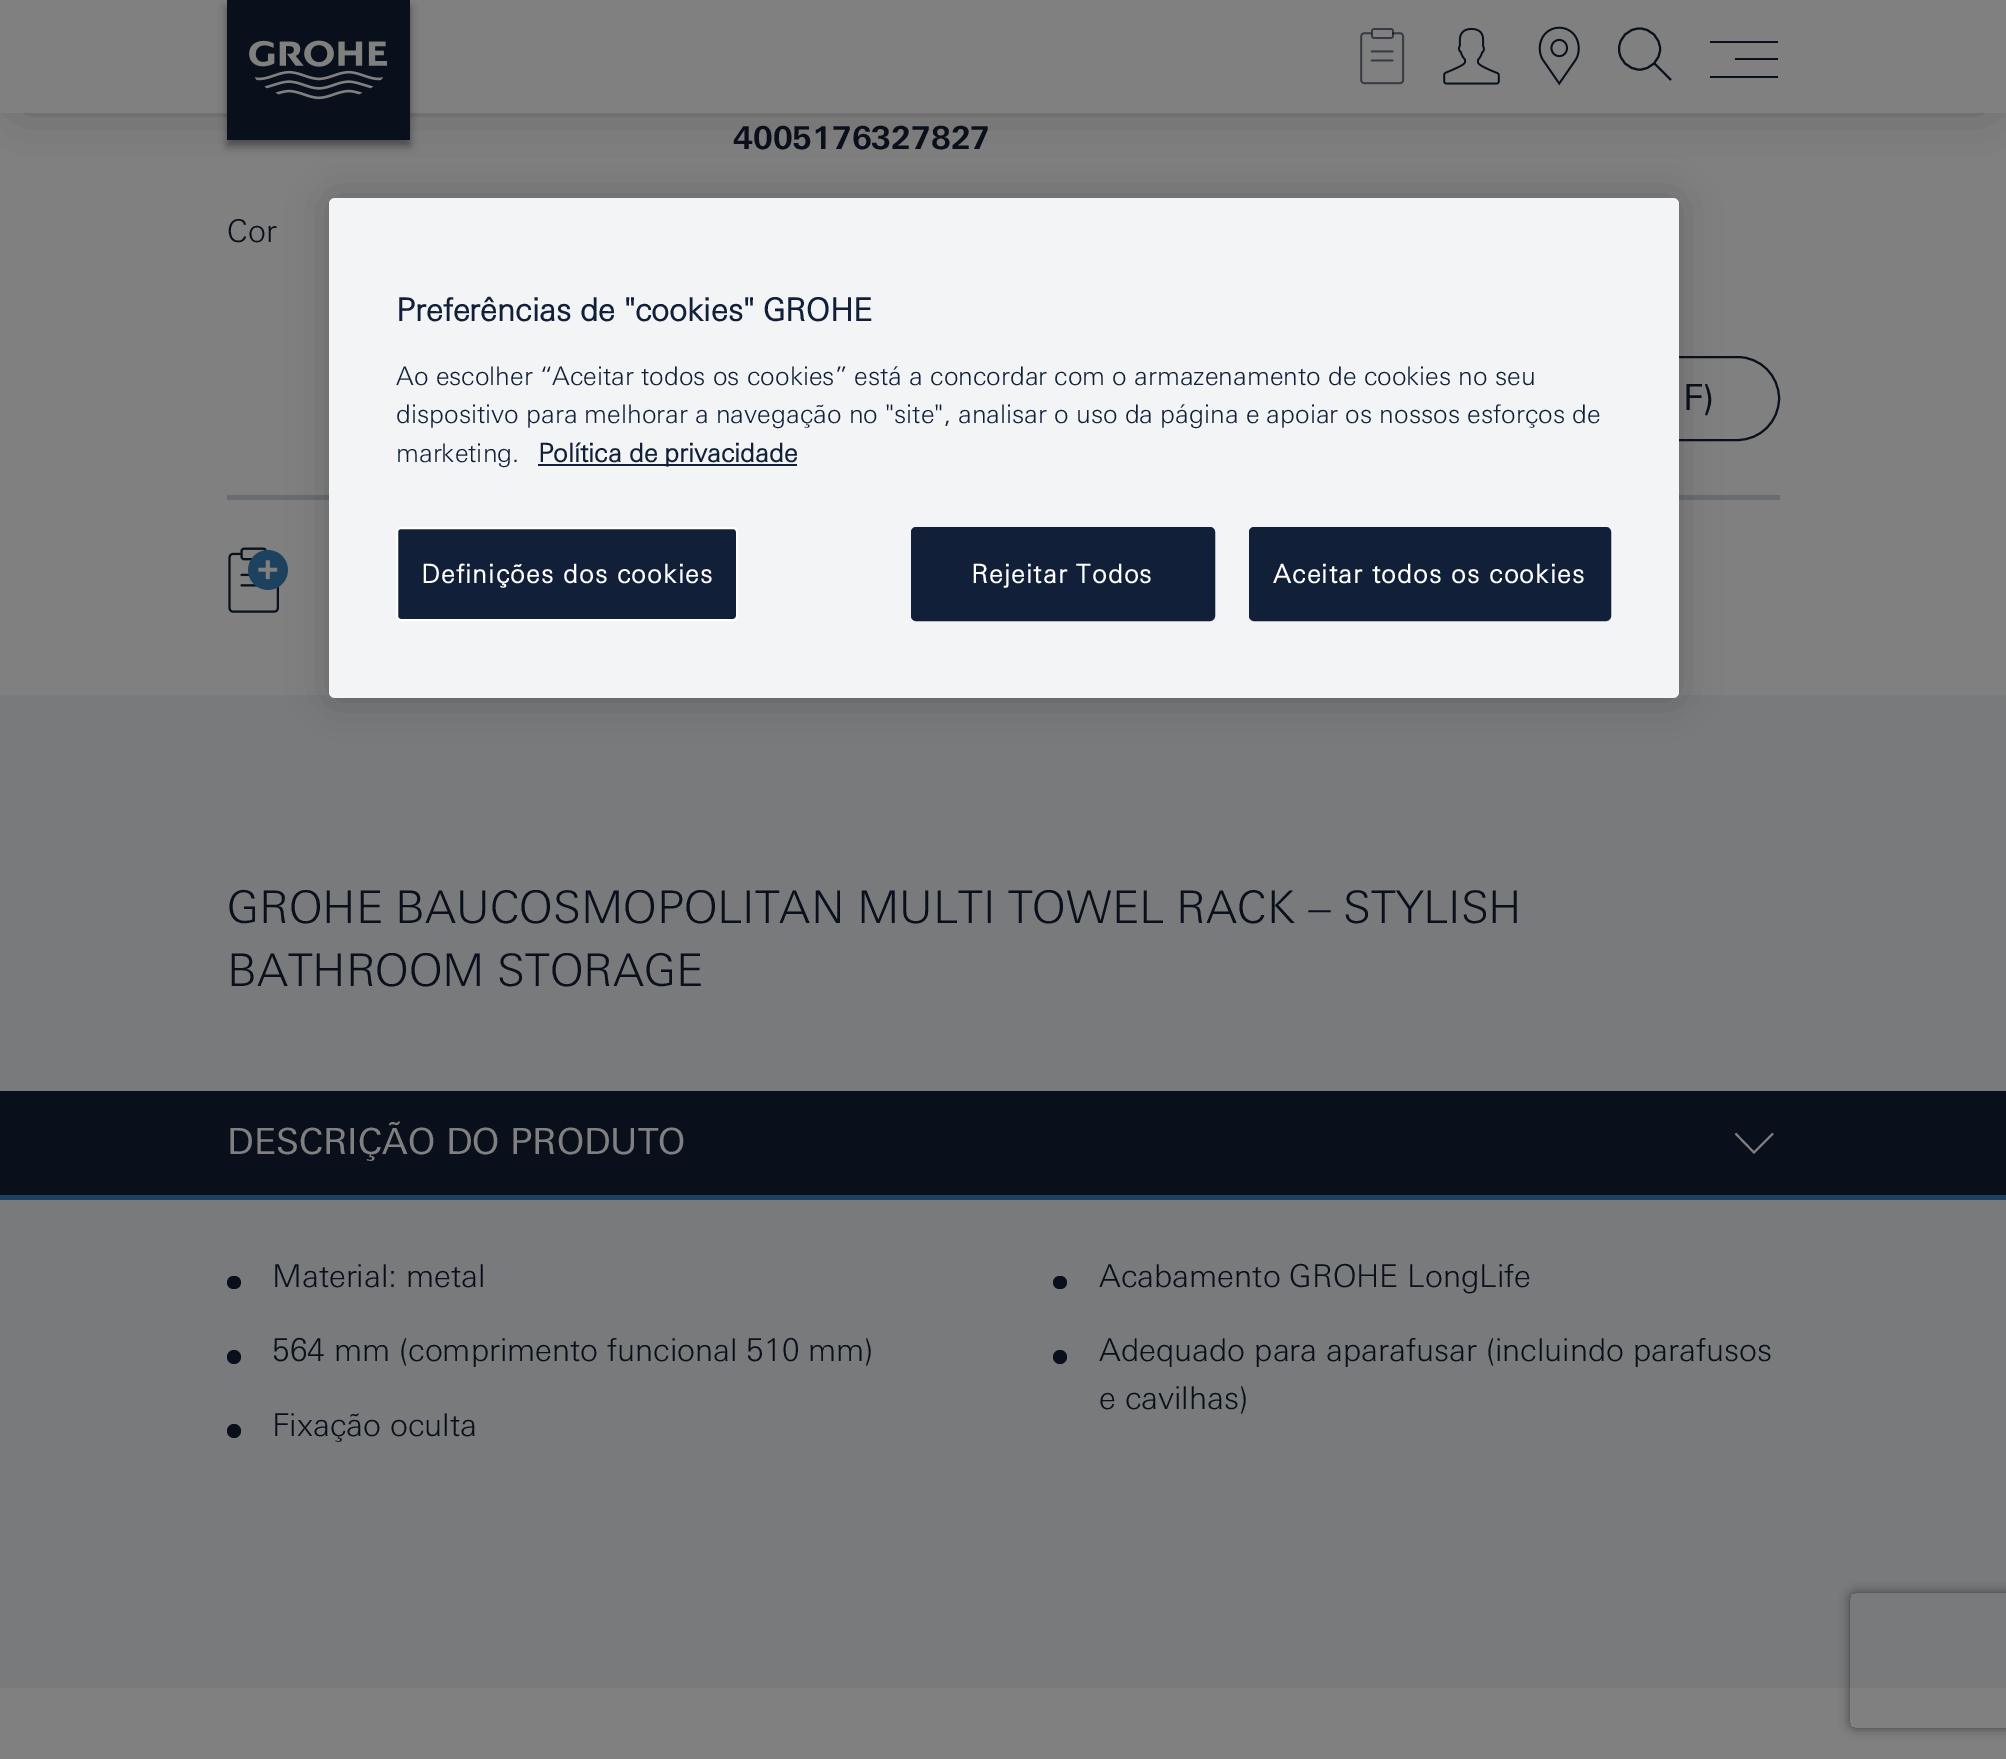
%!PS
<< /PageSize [2006 1759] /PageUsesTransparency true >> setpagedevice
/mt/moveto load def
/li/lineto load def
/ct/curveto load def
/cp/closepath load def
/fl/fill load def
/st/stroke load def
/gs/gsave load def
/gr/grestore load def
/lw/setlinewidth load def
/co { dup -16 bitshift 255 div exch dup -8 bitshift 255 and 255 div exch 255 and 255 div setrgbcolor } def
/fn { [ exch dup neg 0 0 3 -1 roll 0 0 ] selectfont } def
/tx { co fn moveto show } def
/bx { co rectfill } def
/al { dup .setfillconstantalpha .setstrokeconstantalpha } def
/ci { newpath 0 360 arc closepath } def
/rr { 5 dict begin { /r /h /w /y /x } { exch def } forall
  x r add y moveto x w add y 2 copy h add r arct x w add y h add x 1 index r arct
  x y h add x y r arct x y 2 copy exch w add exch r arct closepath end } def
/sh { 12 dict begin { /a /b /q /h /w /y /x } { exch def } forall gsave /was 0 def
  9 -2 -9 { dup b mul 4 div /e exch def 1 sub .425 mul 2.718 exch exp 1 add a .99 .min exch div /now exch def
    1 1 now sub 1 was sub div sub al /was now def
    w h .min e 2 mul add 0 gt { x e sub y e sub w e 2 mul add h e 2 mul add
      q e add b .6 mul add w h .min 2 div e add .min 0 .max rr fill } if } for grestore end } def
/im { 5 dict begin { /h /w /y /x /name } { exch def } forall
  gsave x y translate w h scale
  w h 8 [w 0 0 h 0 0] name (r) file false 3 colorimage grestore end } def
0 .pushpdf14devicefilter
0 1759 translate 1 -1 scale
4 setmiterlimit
0 0 2006 1759 16#808080 bx
16#000000 co
23 29 1962 68 0 27 .4 sh
0 0 2006 113 16#808080 bx
16#000000 co
227 7 183 139 0 4.5 .4 sh
227 0 183 140 16#09101C bx
(media/1.raw) 249 40 139 60 im
(media/2.raw) 1360 28 45 57 im
(media/3.raw) 1443 27 57 58 im
(media/4.raw) 1538 26 42 60 im
2 lw
1671 80 mt 1654 63 li cp st
1639.5 49 20.5 ci st
gs
1710 41 70 38 rectclip
1710 40 mt 1778 40 li 1778 43 li 1710 43 li cp 1735 58 mt 1778 58 li 1778 60 li 1735 60 li cp 1710 76 mt 1778 76 li 1778 78 li 1710 78 li cp fl
gr
1124 357 655 83 41.5 rr st
227 495 1553 5 16#696C70 bx
(media/5.raw) 228 547 60 66 im
0 695 2006 993 16#797A7B bx
0 1091 2006 104 16#09101C bx
0 1195 2006 5 16#1D425F bx
16#808080 co
1.9 lw
1773 1133.5 mt 1754 1152.5 li 1735.5 1133.5 li st
16#09101C co
227 1276 14 13 6.5 rr fl
1053 1276 14 13 6.5 rr fl
234 1357 7 ci fl
1060 1357 7 ci fl
234 1431 7 ci fl
16#000000 co
329 198 1350 500 6 20 .2 sh
16#F2F4F6 co
329 198 1350 500 6 rr fl
538 464 259 2 16#112038 bx
397 528 340 92 4 rr gs fl gr
16#FFFFFF co
2 lw
st
16#112038 co
912 528 302 92 4 rr gs fl gr
st
1250 528 360 92 4 rr gs fl gr
st
gs
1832 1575 mt 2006 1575 li 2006 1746 li 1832 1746 li cp 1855 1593 mt 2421 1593 li 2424 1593 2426 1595 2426 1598 ct 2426 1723 li 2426 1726 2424 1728 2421 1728 ct 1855 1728 li 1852 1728 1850 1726 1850 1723 ct 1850 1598 li 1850 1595 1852 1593 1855 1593 ct cp eoclip newpath
16#404040 co
1850 1593 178 135 5 5.5 1 sh
gr
(4005176327827) 733 149 /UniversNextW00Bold-Bold 31.5 16#09101C tx
(Cor) 227 242 /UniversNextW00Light-Light 31.5 16#09101C tx
(F\)) 1683 410 /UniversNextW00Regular-Regular 36 16#09101C tx
(GROHE BAUCOSMOPOLITAN MULTI TOWEL RACK – STYLISH) 227 923 /UniversNextW00Light-Light 45 16#09101C tx
(BATHROOM STORAGE) 227 986 /UniversNextW00Light-Light 45 16#09101C tx
(DESCRIÇÃO DO PRODUTO) 227 1154 /UniversNextW00Regular-Regular 36 16#808080 tx
(Material: metal) 272 1287 /UniversNextW00Light-Light 31.5 16#09101C tx
(Acabamento GROHE LongLife) 1099 1287 /UniversNextW00Light-Light 31.5 16#09101C tx
(564 mm \(comprimento funcional 510 mm\)) 272 1361 /UniversNextW00Light-Light 31.5 16#09101C tx
(Adequado para aparafusar \(incluindo parafusos) 1099 1361 /UniversNextW00Light-Light 31.5 16#09101C tx
(e cavilhas\)) 1099 1409 /UniversNextW00Light-Light 31.5 16#09101C tx
(Fixação oculta) 272 1436 /UniversNextW00Light-Light 31.5 16#09101C tx
(Preferências de "cookies" GROHE) 396 321 /UniversNextW00Light-Bold 31.5 16#112038 tx
(Ao escolher “Aceitar todos os cookies” está a concordar com o armazenamento de cookies no seu) 396 385 /UniversNextW00Light-Light 25.6 16#112038 tx
(dispositivo para melhorar a navegação no "site", analisar o uso da página e apoiar os nossos esforços de) 396 423 /UniversNextW00Light-Light 25.6 16#112038 tx
(marketing.) 396 462 /UniversNextW00Light-Light 25.6 16#112038 tx
(Política de privacidade) 538 462 /UniversNextW00Light-Bold 25.6 16#112038 tx
16#FFFFFF co
421 583 mt 1.25 0 (Definições dos cookies) ashow
971 583 mt 1.25 0 (Rejeitar Todos) ashow
1273 583 mt 1.25 0 (Aceitar todos os cookies) ashow
.poppdf14devicefilter showpage
